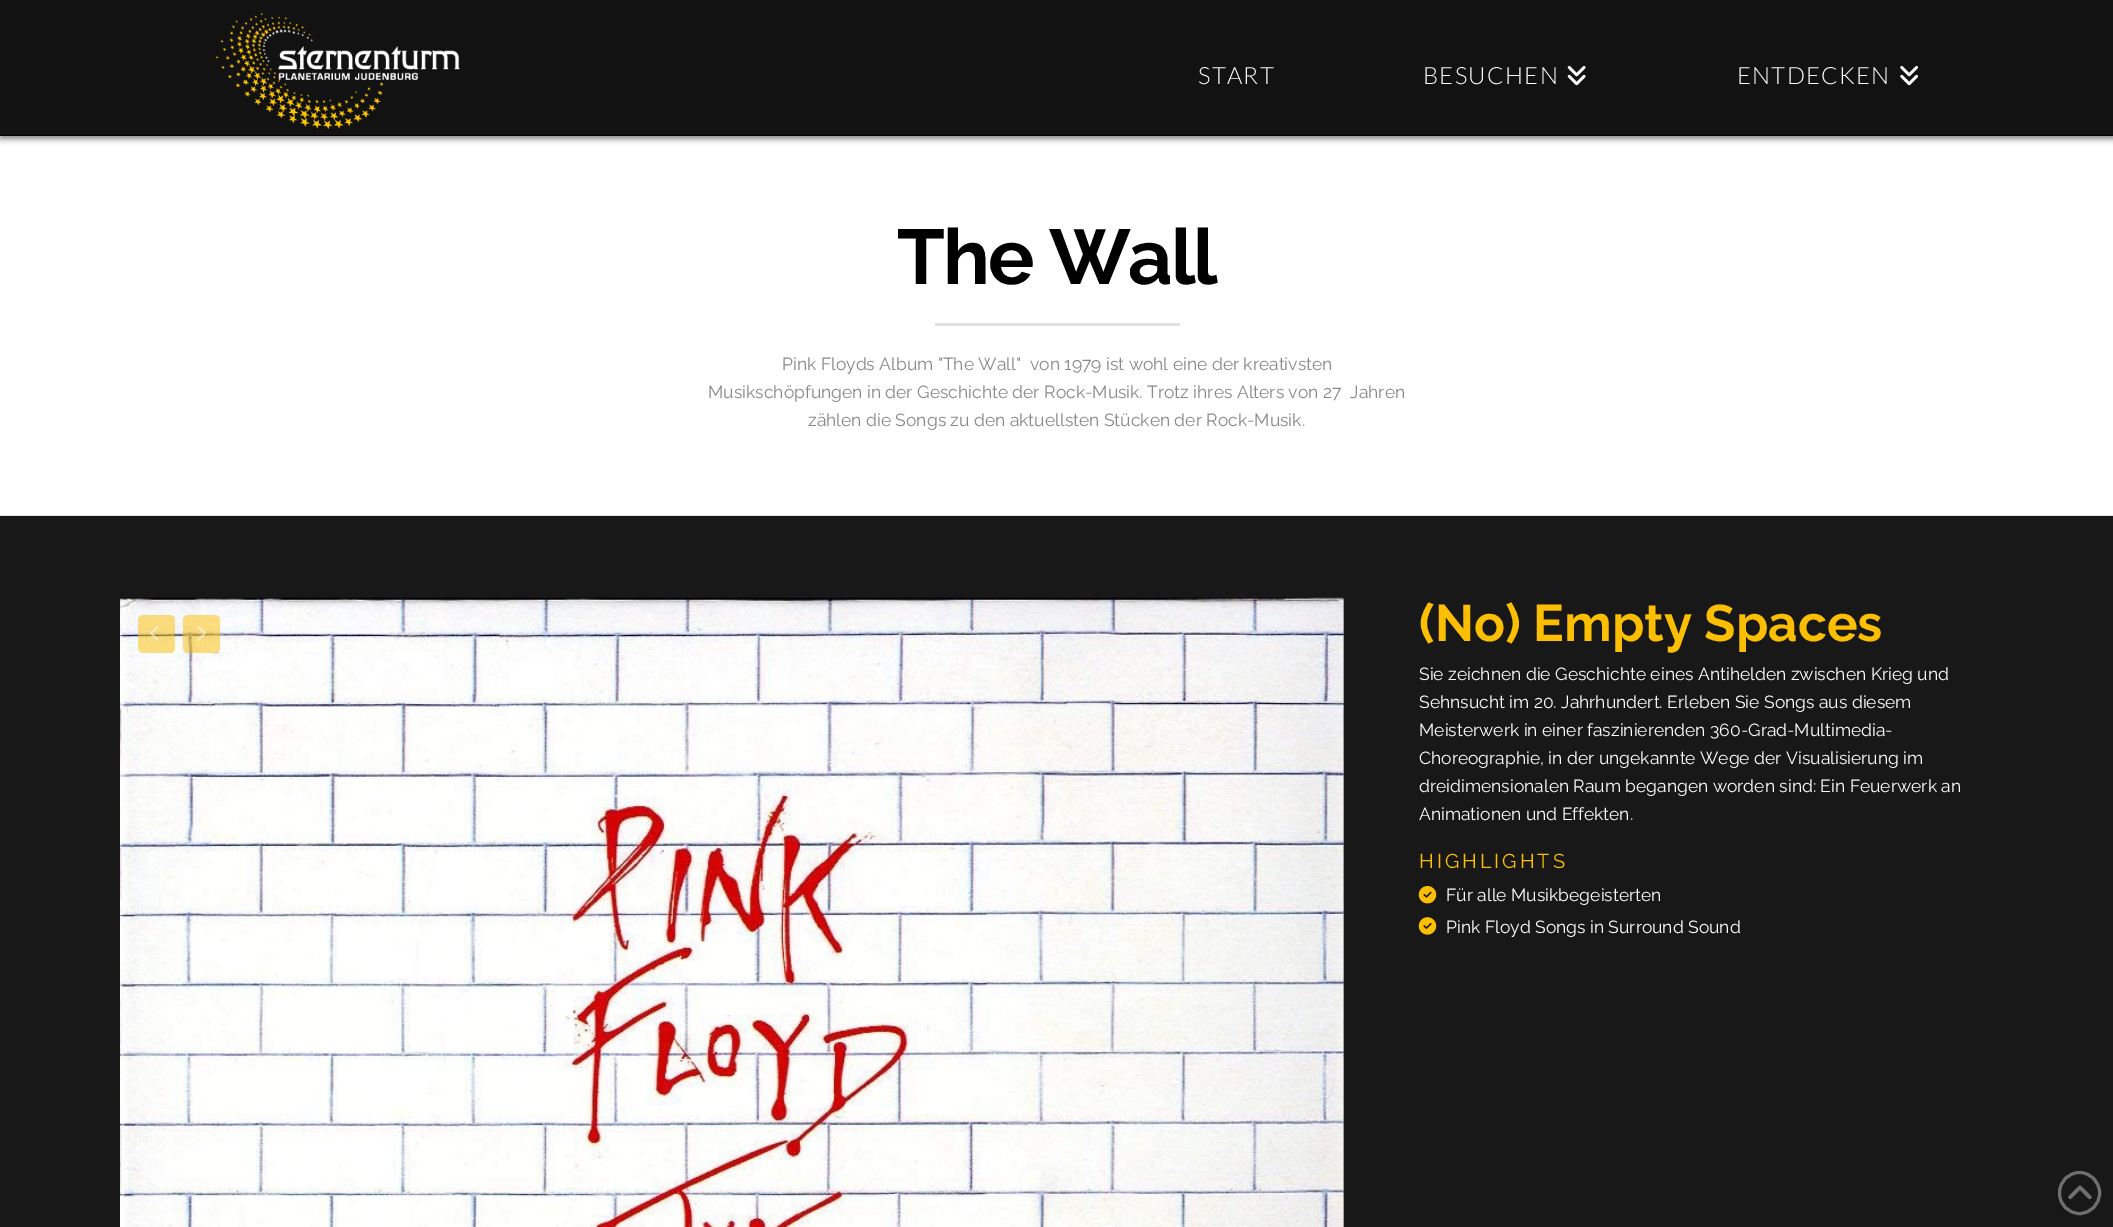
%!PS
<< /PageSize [2113 1227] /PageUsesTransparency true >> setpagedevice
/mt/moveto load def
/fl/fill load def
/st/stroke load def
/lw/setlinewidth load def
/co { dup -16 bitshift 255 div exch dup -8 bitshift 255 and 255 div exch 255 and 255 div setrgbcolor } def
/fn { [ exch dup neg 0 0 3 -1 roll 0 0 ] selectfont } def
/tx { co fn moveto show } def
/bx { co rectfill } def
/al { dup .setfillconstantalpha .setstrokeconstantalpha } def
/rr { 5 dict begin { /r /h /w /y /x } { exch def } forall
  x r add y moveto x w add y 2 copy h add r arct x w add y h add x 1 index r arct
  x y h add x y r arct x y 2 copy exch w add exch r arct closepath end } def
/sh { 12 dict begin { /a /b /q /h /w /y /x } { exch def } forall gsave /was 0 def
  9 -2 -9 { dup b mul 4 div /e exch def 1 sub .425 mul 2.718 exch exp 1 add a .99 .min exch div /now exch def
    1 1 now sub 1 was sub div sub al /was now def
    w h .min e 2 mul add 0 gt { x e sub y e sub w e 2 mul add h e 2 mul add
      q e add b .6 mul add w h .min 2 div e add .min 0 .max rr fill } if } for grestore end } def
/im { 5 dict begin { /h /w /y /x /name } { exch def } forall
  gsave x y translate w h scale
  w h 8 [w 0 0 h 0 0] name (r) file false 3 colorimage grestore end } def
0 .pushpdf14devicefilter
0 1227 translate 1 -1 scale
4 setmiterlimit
0 0 2113 1227 16#FFFFFF bx
16#000000 co
0 3 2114 136 0 3 .47 sh
0 0 2113 135 16#121212 bx
0 135 2113 1 16#000000 bx
(media/1.raw) 216 13 244 116 im
(media/2.raw) 1567 65 19 21 im
(media/3.raw) 1900 65 18 21 im
0 515 2113 1 16#E5E5E5 bx
935 323 245 3 16#E1E1E1 bx
0 516 2113 711 16#191818 bx
(media/4.raw) 120 597 1224 630 im
(media/5.raw) 1343 599 1 628 im
0.5 al
16#FBBE00 co
138 615 37 38 5 rr fl
1 al
(media/6.raw) 150 625 9 16 im
0.5 al
183 615 37 38 5 rr fl
1 al
(media/7.raw) 197 625 9 16 im
(media/8.raw) 1418 885 19 19 im
(media/9.raw) 1418 917 19 18 im
16#6F6F6F co
3 lw
2059.5 1172.5 40 41 20 rr st
(media/10.raw) 2068 1185 24 15 im
/Lato-Light 23.75 fn
16#FFFFFF co
1198 84 mt 1.25 0 (START) ashow
1423 84 mt 1.25 0 (BESUCHEN) ashow
1737 84 mt 1.25 0 (ENTDECKEN) ashow
/Raleway-Bold 77.5 fn
16#000000 co
897 284 mt -2 0 (The Wall) ashow
(Pink Floyds Album "The Wall"  von 1979 ist wohl eine der kreativsten) 782 370 /Raleway-Regular 17.5 16#888888 tx
(Musikschöpfungen in der Geschichte der Rock-Musik. Trotz ihres Alters von 27  Jahren) 708 398 /Raleway-Regular 17.5 16#888888 tx
(zählen die Songs zu den aktuellsten Stücken der Rock-Musik.) 808 426 /Raleway-Regular 17.5 16#888888 tx
(\(No\) Empty Spaces) 1419 641 /Raleway-Bold 51.25 16#FBBE00 tx
(Sie zeichnen die Geschichte eines Antihelden zwischen Krieg und) 1419 680 /Raleway-Regular 17.5 16#FFFFFF tx
(Sehnsucht im 20. Jahrhundert. Erleben Sie Songs aus diesem) 1419 708 /Raleway-Regular 17.5 16#FFFFFF tx
(Meisterwerk in einer faszinierenden 360-Grad-Multimedia-) 1419 736 /Raleway-Regular 17.5 16#FFFFFF tx
(Choreographie, in der ungekannte Wege der Visualisierung im) 1419 764 /Raleway-Regular 17.5 16#FFFFFF tx
(dreidimensionalen Raum begangen worden sind: Ein Feuerwerk an) 1419 792 /Raleway-Regular 17.5 16#FFFFFF tx
(Animationen und Effekten.) 1419 820 /Raleway-Regular 17.5 16#FFFFFF tx
/Raleway-Regular 20 fn
16#FBBE00 co
1419 868 mt 3 0 (HIGHLIGHTS) ashow
(Für alle Musikbegeisterten) 1446 901 /Raleway-Regular 17.5 16#FFFFFF tx
(Pink Floyd Songs in Surround Sound) 1446 933 /Raleway-Regular 17.5 16#FFFFFF tx
.poppdf14devicefilter showpage
